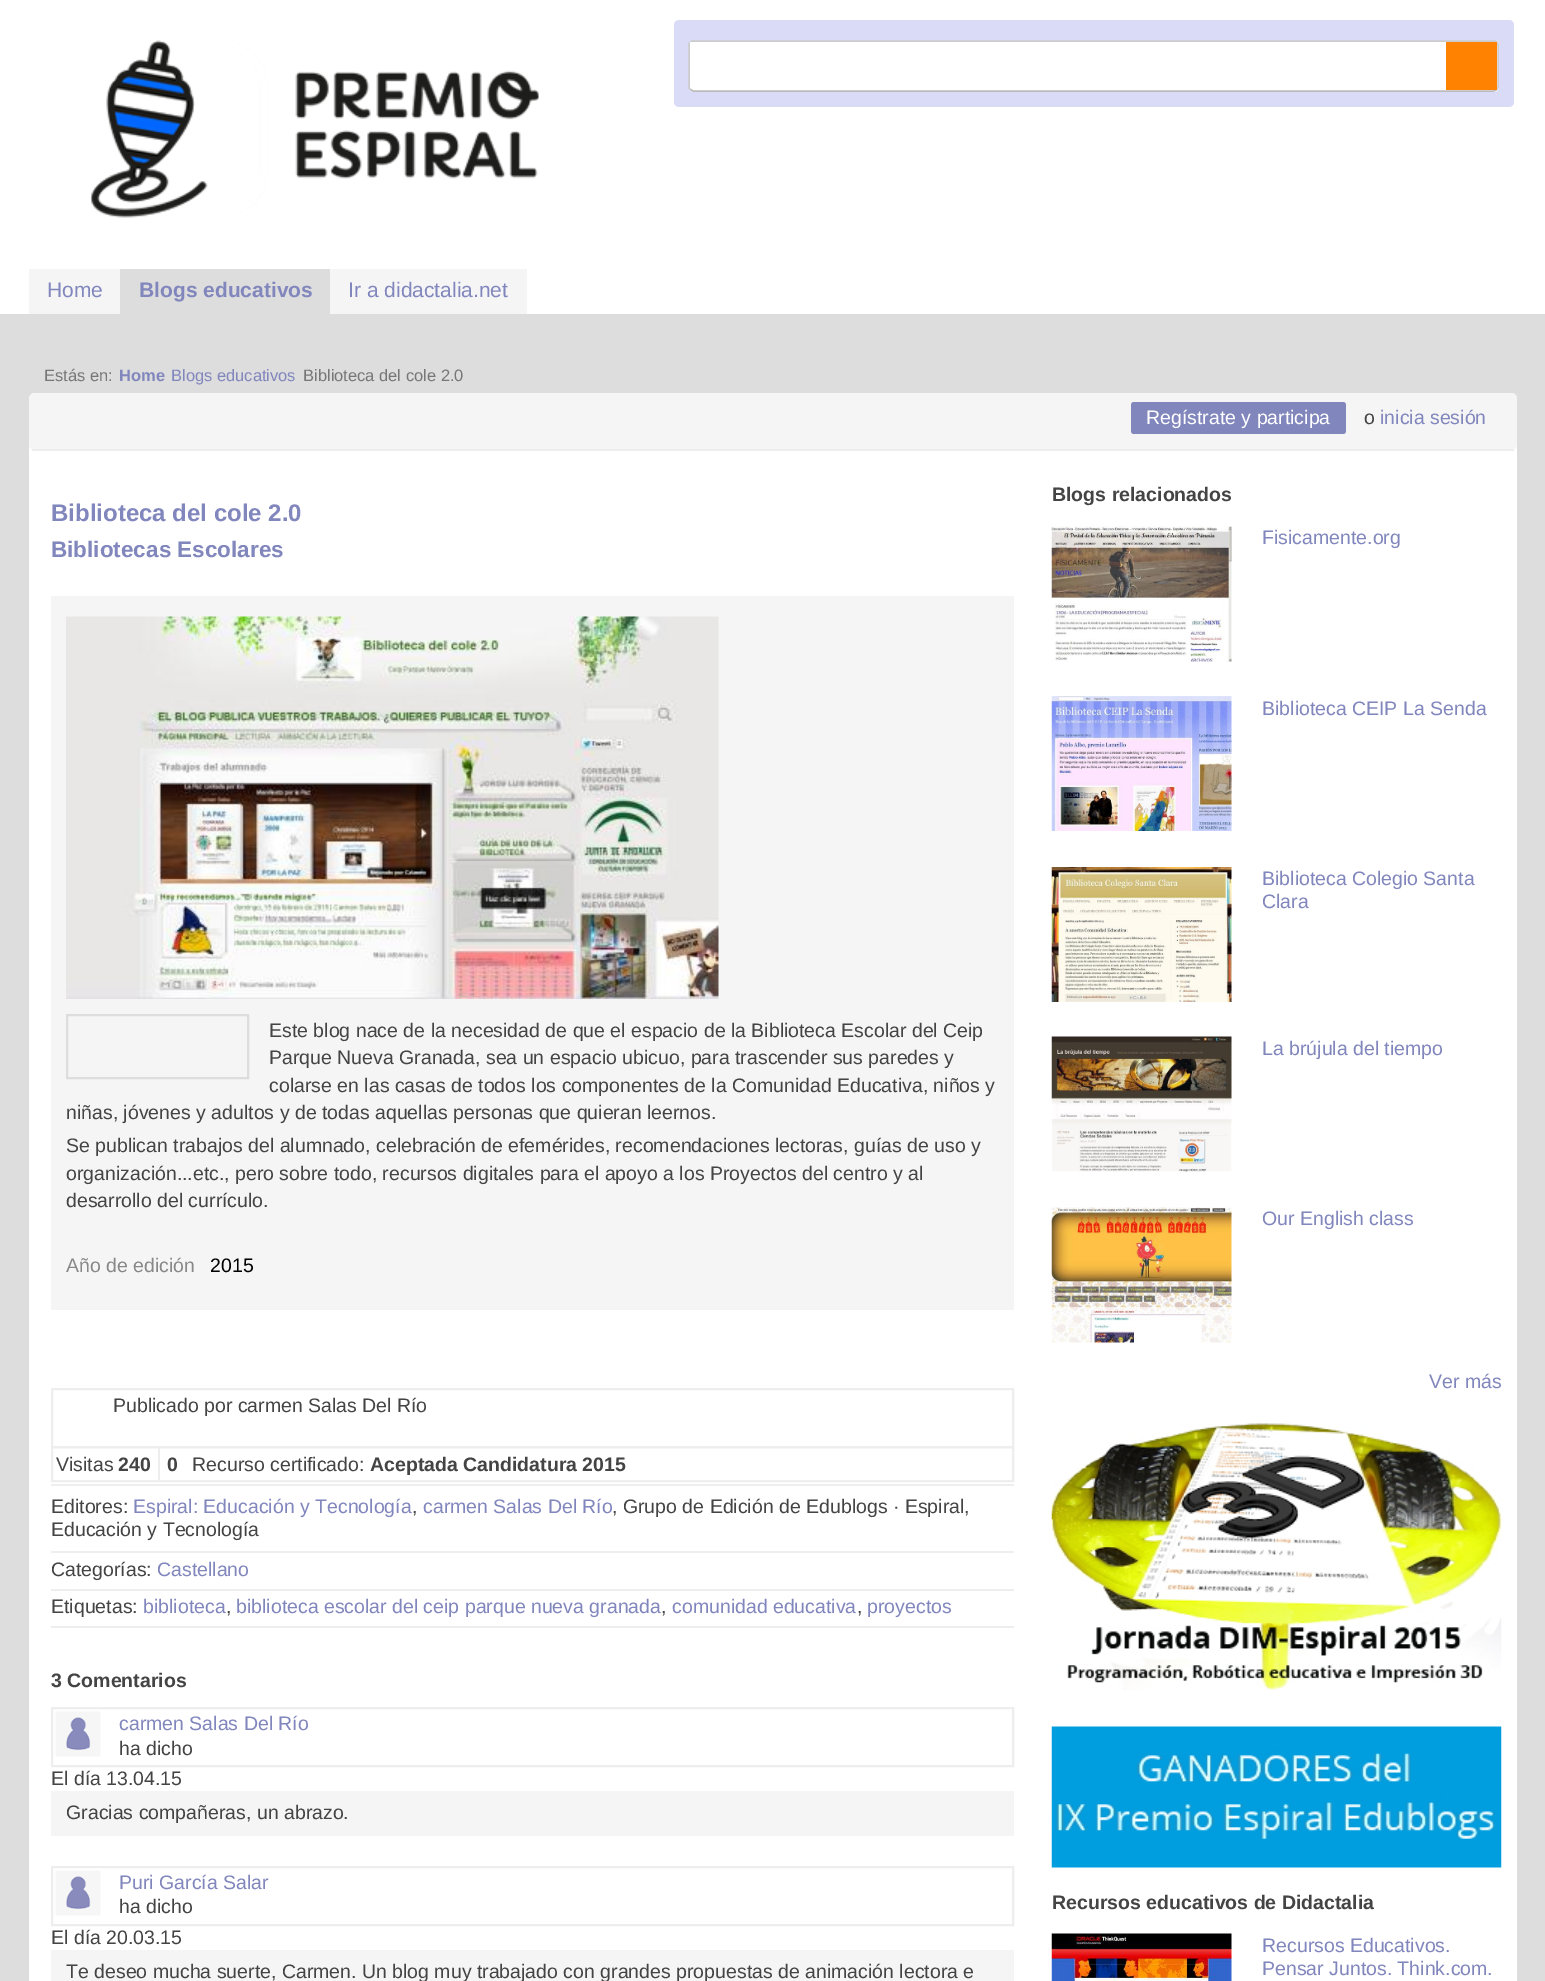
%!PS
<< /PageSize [1545 1981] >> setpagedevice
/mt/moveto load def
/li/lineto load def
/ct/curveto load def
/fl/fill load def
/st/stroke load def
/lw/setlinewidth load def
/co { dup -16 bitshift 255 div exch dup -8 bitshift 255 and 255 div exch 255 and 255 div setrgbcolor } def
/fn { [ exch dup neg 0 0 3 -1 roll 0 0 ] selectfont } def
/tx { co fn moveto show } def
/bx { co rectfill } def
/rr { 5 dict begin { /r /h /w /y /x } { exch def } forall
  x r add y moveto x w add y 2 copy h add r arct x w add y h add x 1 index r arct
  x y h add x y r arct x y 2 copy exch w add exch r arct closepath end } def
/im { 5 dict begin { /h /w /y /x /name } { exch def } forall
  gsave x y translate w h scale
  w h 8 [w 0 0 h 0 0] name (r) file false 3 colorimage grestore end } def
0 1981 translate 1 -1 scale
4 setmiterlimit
0 0 1545 1981 16#DDDDDD bx
0 0 1545 314 16#FFFFFF bx
(media/1.raw) 90 40 449 178 im
16#D9DBF7 co
674 20 840 87 5 rr fl
16#FFFFFF co
689 41 810 51 5 rr fl
16#BBBBBB co
1.5 lw
1496.5 89.5 mt 1494 91 li 693 91 li 690.5 89.5 li st
16#CCCCCC co
690.5 89.5 mt 689.5 89 689 88 689 87 ct 689 45 li 689 44 689.5 43 690.5 42.5 ct 691 41.5 692 41 693 41 ct 1494 41 li 1495 41 1496 41.5 1496.5 42.5 ct 1497.5 43 1498 44 1498 45 ct 1498 87 li 1498 88 1497.5 89 1496.5 89.5 ct st
690 42 2 2 16#FFFFFF bx
1446 42 51 48 16#FF8300 bx
29 269 91 45 16#F5F5F5 bx
120 269 210 45 16#DDDDDD bx
330 269 197 45 16#F5F5F5 bx
16#FFFFFF co
29 393 1488 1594 6 rr fl
16#F5F5F5 co
29 393 1488 57 6 rr fl
32 449 1482 2 16#EEEEEE bx
16#8186BD co
1131 402 215 32 3 rr fl
51 596 963 714 16#F5F5F5 bx
(media/2.raw) 66 616 653 383 im
16#DDDDDD co
2 lw
67 1015 181 63 rectstroke
16#EEEEEE co
52 1389 961 58 rectstroke
52 1447 961 34 rectstroke
158 1448 2 33 16#EEEEEE bx
51 1484 963 2 16#EEEEEE bx
51 1551 963 2 16#EEEEEE bx
51 1589 963 2 16#EEEEEE bx
51 1626 963 2 16#EEEEEE bx
52 1708 961 58 rectstroke
(media/3.raw) 55 1711 46 46 im
51 1791 963 45 16#F5F5F5 bx
16#EEEEEE co
52 1867 961 58 rectstroke
(media/4.raw) 55 1870 46 46 im
51 1950 963 31 16#F5F5F5 bx
(media/5.raw) 1051 526 181 136 im
(media/6.raw) 1051 696 181 135 im
(media/7.raw) 1051 867 181 135 im
(media/8.raw) 1051 1036 181 136 im
(media/9.raw) 1051 1207 181 136 im
(media/10.raw) 1051 1423 451 267 im
(media/11.raw) 1051 1726 451 142 im
(media/12.raw) 1051 1933 181 48 im
(Home) 47 297 /LiberationSans-Regular 21 16#8186BD tx
(Blogs educativos) 139 297 /LiberationSans-Bold 21 16#8186BD tx
(Ir a didactalia.net) 348 297 /LiberationSans-Regular 21 16#8186BD tx
(Estás en:) 44 381 /LiberationSans-Regular 16.5 16#777777 tx
(Home) 119 381 /LiberationSans-Bold 16.5 16#8186BD tx
(Blogs educativos) 171 381 /LiberationSans-Regular 16.5 16#8186BD tx
(Biblioteca del cole 2.0) 303 381 /LiberationSans-Regular 16.5 16#777777 tx
(Regístrate y participa) 1146 424 /LiberationSans-Regular 19.5 16#FFFFFF tx
(o) 1364 424 /LiberationSans-Regular 19.5 16#444444 tx
(inicia sesión) 1380 424 /LiberationSans-Regular 19.5 16#8186BD tx
(Biblioteca del cole 2.0) 51 521 /LiberationSans-Bold 24 16#8186BD tx
(Bibliotecas Escolares) 51 557 /LiberationSans-Bold 22.5 16#8186BD tx
(Este blog nace de la necesidad de que el espacio de la Biblioteca Escolar del Ceip) 269 1037 /LiberationSans-Regular 19.5 16#444444 tx
(Parque Nueva Granada, sea un espacio ubicuo, para trascender sus paredes y) 269 1064 /LiberationSans-Regular 19.5 16#444444 tx
(colarse en las casas de todos los componentes de la Comunidad Educativa, niños y) 269 1092 /LiberationSans-Regular 19.5 16#444444 tx
(niñas, jóvenes y adultos y de todas aquellas personas que quieran leernos.) 66 1119 /LiberationSans-Regular 19.5 16#444444 tx
(Se publican trabajos del alumnado, celebración de efemérides, recomendaciones lectoras, guías de uso y) 66 1152 /LiberationSans-Regular 19.5 16#444444 tx
(organización...etc., pero sobre todo, recursos digitales para el apoyo a los Proyectos del centro y al) 66 1180 /LiberationSans-Regular 19.5 16#444444 tx
(desarrollo del currículo.) 66 1207 /LiberationSans-Regular 19.5 16#444444 tx
(Año de edición) 66 1272 /LiberationSans-Regular 19.5 16#888888 tx
(2015) 210 1272 /LiberationSans-Regular 19.5 16#000000 tx
(Publicado por carmen Salas Del Río) 113 1412 /LiberationSans-Regular 19.5 16#444444 tx
(Visitas) 56 1471 /LiberationSans-Regular 19.5 16#444444 tx
(240) 118 1471 /LiberationSans-Bold 19.5 16#444444 tx
(0) 167 1471 /LiberationSans-Bold 19.5 16#444444 tx
(Recurso certificado:) 192 1471 /LiberationSans-Regular 19.5 16#444444 tx
(Aceptada Candidatura 2015) 370 1471 /LiberationSans-Bold 19.5 16#444444 tx
(Editores:) 51 1513 /LiberationSans-Regular 19.5 16#444444 tx
(Espiral: Educación y Tecnología) 133 1513 /LiberationSans-Regular 19.5 16#8186BD tx
(,) 412 1513 /LiberationSans-Regular 19.5 16#444444 tx
(carmen Salas Del Río) 423 1513 /LiberationSans-Regular 19.5 16#8186BD tx
(, Grupo de Edición de Edublogs · Espiral,) 612 1513 /LiberationSans-Regular 19.5 16#444444 tx
(Educación y Tecnología) 51 1536 /LiberationSans-Regular 19.5 16#444444 tx
(Categorías:) 51 1576 /LiberationSans-Regular 19.5 16#444444 tx
(Castellano) 157 1576 /LiberationSans-Regular 19.5 16#8186BD tx
(Etiquetas:) 51 1613 /LiberationSans-Regular 19.5 16#444444 tx
(biblioteca) 143 1613 /LiberationSans-Regular 19.5 16#8186BD tx
(,) 226 1613 /LiberationSans-Regular 19.5 16#444444 tx
(biblioteca escolar del ceip parque nueva granada) 236 1613 /LiberationSans-Regular 19.5 16#8186BD tx
(,) 661 1613 /LiberationSans-Regular 19.5 16#444444 tx
(comunidad educativa) 672 1613 /LiberationSans-Regular 19.5 16#8186BD tx
(,) 857 1613 /LiberationSans-Regular 19.5 16#444444 tx
(proyectos) 867 1613 /LiberationSans-Regular 19.5 16#8186BD tx
(3 Comentarios) 51 1687 /LiberationSans-Bold 19.5 16#444444 tx
(carmen Salas Del Río) 119 1730 /LiberationSans-Regular 19.5 16#8186BD tx
(ha dicho) 119 1755 /LiberationSans-Regular 19.5 16#444444 tx
(El día 13.04.15) 51 1785 /LiberationSans-Regular 19.5 16#444444 tx
(Gracias compañeras, un abrazo.) 66 1819 /LiberationSans-Regular 19.5 16#444444 tx
(Puri García Salar) 119 1889 /LiberationSans-Regular 19.5 16#8186BD tx
(ha dicho) 119 1913 /LiberationSans-Regular 19.5 16#444444 tx
(El día 20.03.15) 51 1944 /LiberationSans-Regular 19.5 16#444444 tx
(Te deseo mucha suerte, Carmen. Un blog muy trabajado con grandes propuestas de animación lectora e) 66 1978 /LiberationSans-Regular 19.5 16#444444 tx
(Blogs relacionados) 1052 501 /LiberationSans-Bold 19.5 16#444444 tx
(Fisicamente.org) 1262 544 /LiberationSans-Regular 19.5 16#8186BD tx
(Biblioteca CEIP La Senda) 1262 715 /LiberationSans-Regular 19.5 16#8186BD tx
(Biblioteca Colegio Santa) 1262 885 /LiberationSans-Regular 19.5 16#8186BD tx
(Clara) 1262 908 /LiberationSans-Regular 19.5 16#8186BD tx
(La brújula del tiempo) 1262 1055 /LiberationSans-Regular 19.5 16#8186BD tx
(Our English class) 1262 1225 /LiberationSans-Regular 19.5 16#8186BD tx
(Ver más) 1429 1388 /LiberationSans-Regular 19.5 16#8186BD tx
(Recursos educativos de Didactalia) 1052 1909 /LiberationSans-Bold 19.5 16#444444 tx
(Recursos Educativos.) 1262 1952 /LiberationSans-Regular 19.5 16#8186BD tx
(Pensar Juntos. Think.com.) 1262 1975 /LiberationSans-Regular 19.5 16#8186BD tx
showpage
